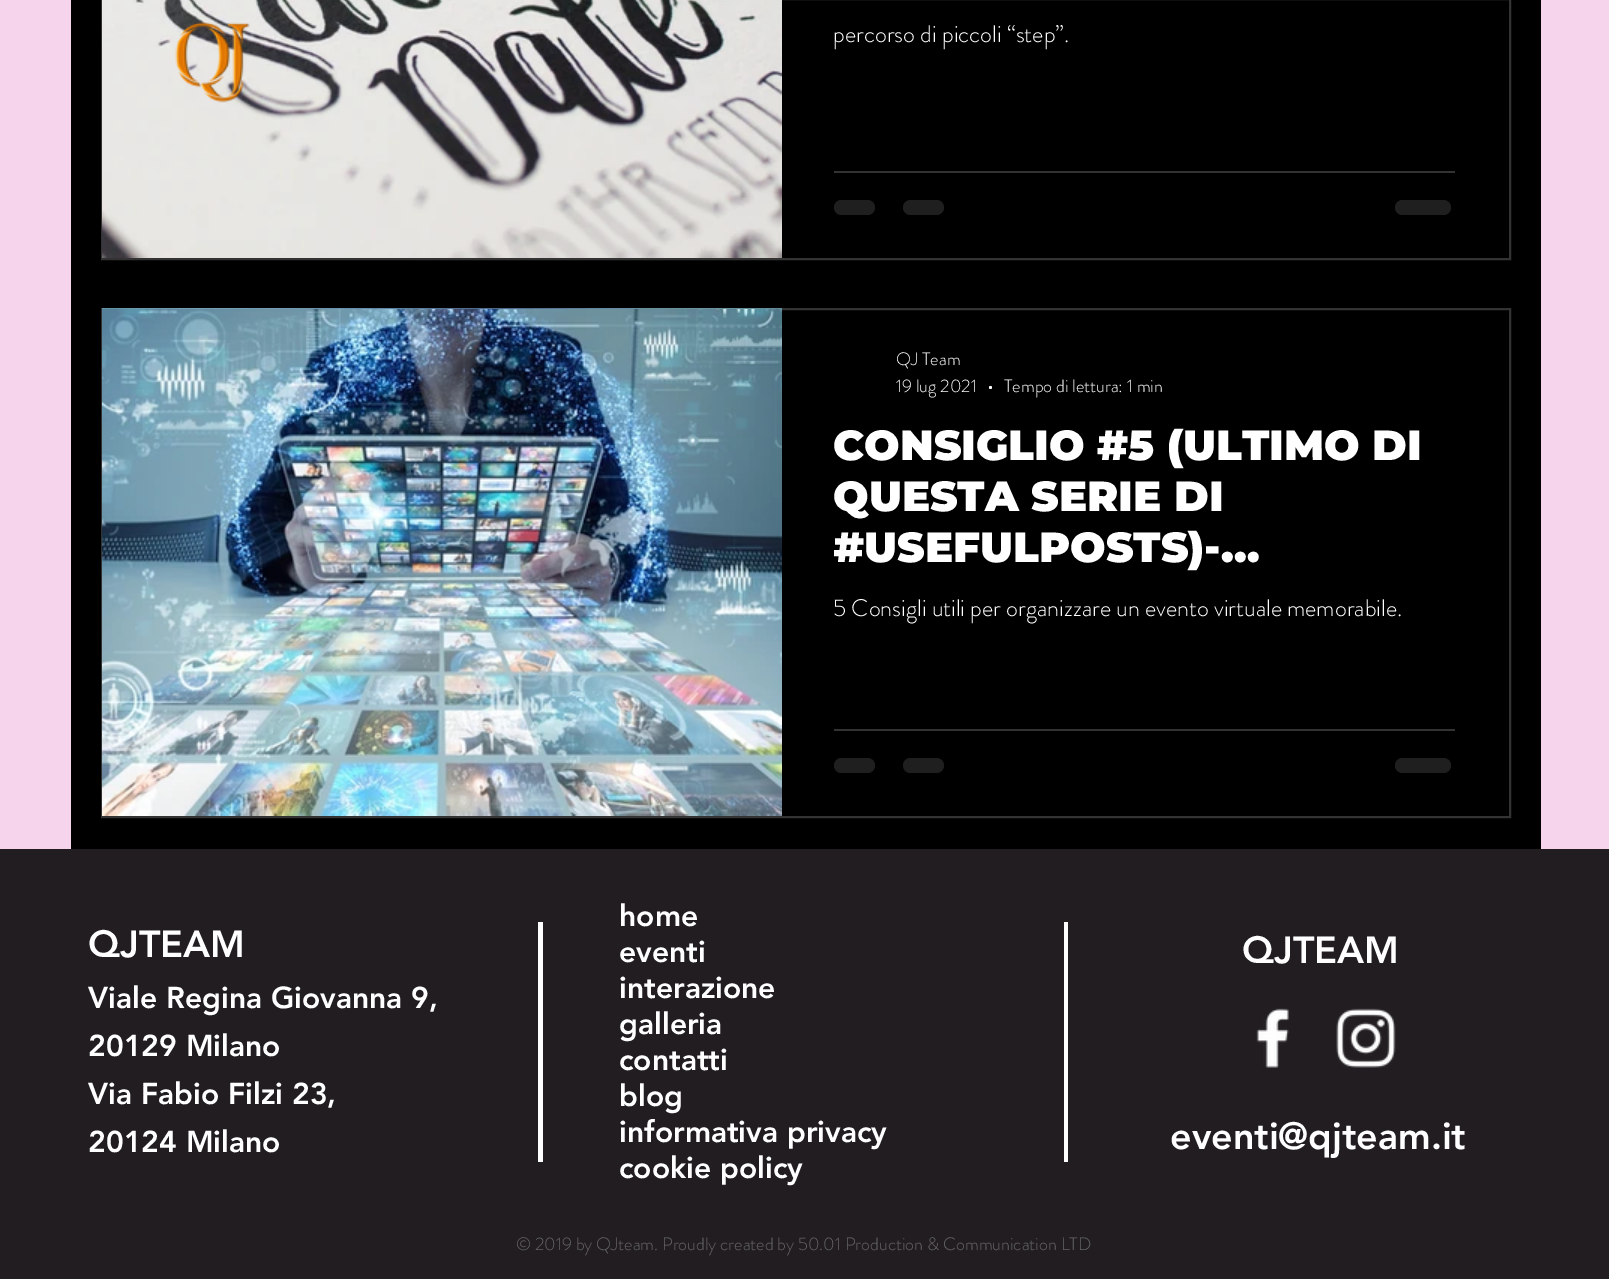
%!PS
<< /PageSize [1609 1279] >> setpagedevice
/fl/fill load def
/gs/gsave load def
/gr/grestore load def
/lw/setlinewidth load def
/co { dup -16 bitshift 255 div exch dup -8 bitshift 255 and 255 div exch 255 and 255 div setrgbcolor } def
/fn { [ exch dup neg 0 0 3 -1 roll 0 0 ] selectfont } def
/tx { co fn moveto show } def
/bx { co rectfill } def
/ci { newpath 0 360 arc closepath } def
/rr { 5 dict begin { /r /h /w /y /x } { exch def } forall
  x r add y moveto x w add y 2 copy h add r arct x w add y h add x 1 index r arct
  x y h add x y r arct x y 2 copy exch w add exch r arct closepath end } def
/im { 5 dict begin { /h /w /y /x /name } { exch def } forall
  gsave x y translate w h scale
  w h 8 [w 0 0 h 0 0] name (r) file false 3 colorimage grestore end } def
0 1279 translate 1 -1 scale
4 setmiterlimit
0 0 1609 1279 16#F6D5EC bx
71 0 1470 849 16#000000 bx
16#333333 co
2 lw
102 -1 1408 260 rectstroke
(media/2.raw) 102 0 680 258 im
(media/1.raw) 175 22 75 81 im
834 171 621 2 16#333333 bx
16#1F1F1F co
834 200 41 15 7.5 rr fl
903 200 41 15 7.5 rr fl
1395 200 56 15 7.5 rr fl
16#333333 co
102 309 1408 508 rectstroke
(media/3.raw) 102 308 680 1 im
(media/4.raw) 102 309 680 507 im
16#FFFFFF co
990.5 387.5 1.5 ci fl
834 729 621 2 16#333333 bx
16#1F1F1F co
834 758 41 15 7.5 rr fl
903 758 41 15 7.5 rr fl
1395 758 56 15 7.5 rr fl
0 849 1609 430 16#211D21 bx
538 922 5 240 16#FFFFFF bx
1064 922 4 240 16#FFFFFF bx
(media/5.raw) 1256 1008 33 60 im
(media/6.raw) 1336 1008 60 60 im
(percorso di piccoli “step”.) 833 42 /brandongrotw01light-Light 24 16#FFFFFF tx
(QJ Team) 896 365 /brandongrotw01light-Light 18 16#FFFFFF tx
(19 lug 2021) 896 392 /brandongrotw01light-Light 18 16#FFFFFF tx
(Tempo di lettura: 1 min) 1004 392 /brandongrotw01light-Light 18 16#FFFFFF tx
(CONSIGLIO #5 \(ULTIMO DI) 833 460 /Montserrat-Thin 42 16#FFFFFF tx
(QUESTA SERIE DI) 833 511 /Montserrat-Thin 42 16#FFFFFF tx
gs
834 420 621 153 rectclip
(#USEFULPOSTS\)-…) 833 562 /Montserrat-Thin 42 16#FFFFFF tx
gr
(5 Consigli utili per organizzare un evento virtuale memorabile.) 833 616 /brandongrotw01light-Light 24 16#FFFFFF tx
(QJTEAM) 88 957 /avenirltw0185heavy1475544-Black 37.5 16#FFFFFF tx
(Viale Regina Giovanna 9,) 88 1008 /avenirltw0185heavy1475544-Black 30 16#FFFFFF tx
(20129 Milano) 88 1056 /avenirltw0185heavy1475544-Black 30 16#FFFFFF tx
(Via Fabio Filzi 23,) 88 1104 /avenirltw0185heavy1475544-Black 30 16#FFFFFF tx
(20124 Milano) 88 1152 /avenirltw0185heavy1475544-Black 30 16#FFFFFF tx
(home) 619 926 /avenirltw0185heavy1475544-Black 30 16#FFFFFF tx
(eventi) 619 962 /avenirltw0185heavy1475544-Black 30 16#FFFFFF tx
(interazione) 619 998 /avenirltw0185heavy1475544-Black 30 16#FFFFFF tx
(galleria) 619 1034 /avenirltw0185heavy1475544-Black 30 16#FFFFFF tx
(contatti) 619 1070 /avenirltw0185heavy1475544-Black 30 16#FFFFFF tx
(blog) 619 1106 /avenirltw0185heavy1475544-Black 30 16#FFFFFF tx
(informativa privacy) 619 1142 /avenirltw0185heavy1475544-Black 30 16#FFFFFF tx
(cookie policy) 619 1178 /avenirltw0185heavy1475544-Black 30 16#FFFFFF tx
(QJTEAM) 1242 963 /avenirltw0185heavy1475544-Black 37.5 16#FFFFFF tx
(eventi@qjteam.it) 1170 1149 /avenirltw0185heavy1475544-Black 37.5 16#FFFFFF tx
(© 2019 by QJteam. Proudly created by 50.01 Production & Communication LTD) 516 1250 /brandongrotw01light-Light 18 16#666666 tx
showpage
